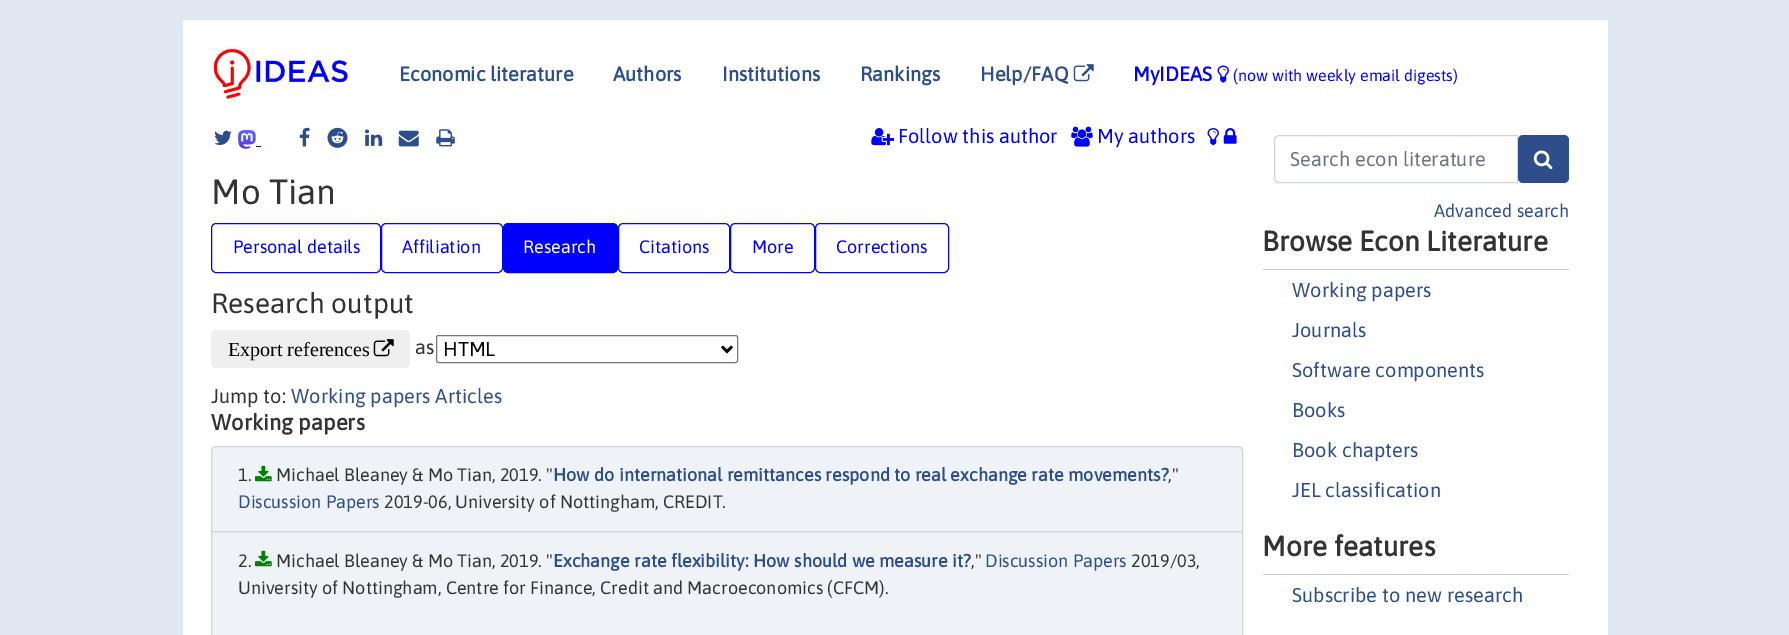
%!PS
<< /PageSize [1789 635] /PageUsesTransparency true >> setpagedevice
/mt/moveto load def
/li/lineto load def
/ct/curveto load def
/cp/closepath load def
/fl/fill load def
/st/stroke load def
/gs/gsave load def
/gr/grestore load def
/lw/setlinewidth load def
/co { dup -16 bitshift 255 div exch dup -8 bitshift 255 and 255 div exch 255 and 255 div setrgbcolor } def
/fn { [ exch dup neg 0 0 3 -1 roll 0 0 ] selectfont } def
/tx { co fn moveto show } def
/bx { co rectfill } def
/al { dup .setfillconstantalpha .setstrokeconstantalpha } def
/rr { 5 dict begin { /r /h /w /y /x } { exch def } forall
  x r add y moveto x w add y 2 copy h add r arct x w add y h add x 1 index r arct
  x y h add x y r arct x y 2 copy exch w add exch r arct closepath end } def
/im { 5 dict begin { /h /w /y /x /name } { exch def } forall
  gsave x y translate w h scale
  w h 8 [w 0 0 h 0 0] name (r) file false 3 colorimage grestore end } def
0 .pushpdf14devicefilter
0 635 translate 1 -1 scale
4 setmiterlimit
0 0 1789 635 16#DFE7F2 bx
183 20 1425 615 16#FFFFFF bx
(media/1.raw) 213 49 136 50 im
(media/2.raw) 1073 64 21 18 im
(media/3.raw) 1217 65 12 18 im
(media/4.raw) 214 130 18 15 im
(media/5.raw) 238 130 18 19 im
256 146 5 1 16#0000FF bx
(media/6.raw) 299 127 11 20 im
(media/7.raw) 327 127 21 21 im
(media/8.raw) 365 129 18 17 im
(media/9.raw) 398 130 21 17 im
(media/10.raw) 436 129 19 18 im
(media/11.raw) 871 128 24 18 im
(media/12.raw) 1071 126 22 21 im
(media/13.raw) 1207 128 12 18 im
(media/14.raw) 1223 128 14 16 im
16#0000FC co
211.5 223.5 169 49 4.5 rr st
381.5 223.5 121 49 4.5 rr st
503.5 223.5 114 49 4.5 rr gs fl gr
st
618.5 223.5 111 49 4.5 rr st
730.5 223.5 84 49 4.5 rr st
815.5 223.5 133 49 4.5 rr st
16#EFEFEF co
211 330 199 38 5 rr fl
(media/15.raw) 373 339 21 18 im
16#767676 co
436.5 335.5 301 27 2 rr st
16#000000 co
2.5 lw
722 346.5 mt 727 351.5 li 732 346.5 li st
16#EFF3F8 co
216 446 mt 1238 446 li 1241 446 1243 448 1243 451 ct 1243 533 li 211 533 li 211 451 li 211 448 213 446 216 446 ct cp fl
0.12 al
16#000000 co
1 lw
216 446.5 mt 1238 446.5 li 1240.5 446.5 1242.5 448.5 1242.5 451 ct 1242.5 532.5 li 211.5 532.5 li 211.5 451 li 211.5 448.5 213.5 446.5 216 446.5 ct cp st
1 al
(media/16.raw) 255 465 17 17 im
16#EFF3F8 co
211.5 531.5 mt 1242.5 531.5 li 1242.5 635.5 li 211.5 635.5 li cp gs fl gr
16#D1D5D9 co
st
(media/16.raw) 255 550 17 17 im
16#CED4DA co
1279 135.5 mt 1517.5 135.5 li 1517.5 182.5 li 1279 182.5 li 1276.5 182.5 1274.5 180.5 1274.5 178 ct 1274.5 140 li 1274.5 137.5 1276.5 135.5 1279 135.5 ct cp st
16#2D4E8B co
1518 135 51 48 5 rr fl
(media/17.raw) 1533 150 20 20 im
1263 269 306 1 16#CCCCCC bx
1263 574 306 1 16#CCCCCC bx
(Economic literature) 399 81 /Asap-Bold 20 16#2D4E8B tx
(Authors) 613 81 /Asap-Bold 20 16#2D4E8B tx
(Institutions) 722 81 /Asap-Bold 20 16#2D4E8B tx
(Rankings) 860 81 /Asap-Bold 20 16#2D4E8B tx
(Help/FAQ) 980 81 /Asap-Bold 20 16#2D4E8B tx
(MyIDEAS) 1133 81 /Asap-Bold 20 16#0000FF tx
(\(now with weekly email digests\)) 1233 81 /Asap-Regular 16 16#0000FF tx
(Follow this author) 898 143 /Asap-Regular 20 16#0000FF tx
(My authors) 1097 143 /Asap-Regular 20 16#0000FF tx
(Mo Tian) 211 204 /Asap-Regular 35 16#333333 tx
(Personal details) 233 253 /Asap-Regular 18 16#0000FF tx
(Affiliation) 402 253 /Asap-Regular 18 16#0000FF tx
(Research) 523 253 /Asap-Regular 18 16#FFFFFF tx
(Citations) 639 253 /Asap-Regular 18 16#0000FF tx
(More) 752 253 /Asap-Regular 18 16#0000FF tx
(Corrections) 836 253 /Asap-Regular 18 16#0000FF tx
(Research output) 211 313 /Asap-Regular 28 16#333333 tx
(Export references) 228 356 /LiberationSerif-Regular 20 16#000000 tx
(as) 415 354 /Asap-Regular 20 16#333333 tx
(HTML) 443 356 /Asap-Regular 20 16#000000 tx
(Jump to:) 211 403 /Asap-Regular 20 16#333333 tx
(Working papers Articles) 291 403 /Asap-Regular 20 16#2D4E8B tx
(Working papers) 211 430 /Asap-Bold 22 16#333333 tx
(1.) 238 481 /Asap-Regular 18 16#333333 tx
(Michael Bleaney & Mo Tian, 2019. ") 276 481 /Asap-Regular 18 16#333333 tx
(How do international remittances respond to real exchange rate movements?) 553 481 /Asap-Bold 18 16#2D4E8B tx
(,") 1168 481 /Asap-Regular 18 16#333333 tx
(Discussion Papers) 238 508 /Asap-Regular 18 16#2D4E8B tx
(2019-06, University of Nottingham, CREDIT.) 384 508 /Asap-Regular 18 16#333333 tx
(2.) 238 567 /Asap-Regular 18 16#333333 tx
(Michael Bleaney & Mo Tian, 2019. ") 276 567 /Asap-Regular 18 16#333333 tx
(Exchange rate flexibility: How should we measure it?) 553 567 /Asap-Bold 18 16#2D4E8B tx
(,") 971 567 /Asap-Regular 18 16#333333 tx
(Discussion Papers) 985 567 /Asap-Regular 18 16#2D4E8B tx
(2019/03,) 1131 567 /Asap-Regular 18 16#333333 tx
(University of Nottingham, Centre for Finance, Credit and Macroeconomics \(CFCM\).) 238 594 /Asap-Regular 18 16#333333 tx
(Search econ literature) 1290 166 /Asap-Regular 20 16#6C757D tx
(Advanced search) 1434 217 /Asap-Regular 18 16#2D4E8B tx
(Browse Econ Literature) 1262 251 /Asap-Bold 28 16#333333 tx
(Working papers) 1292 297 /Asap-Regular 20 16#2D4E8B tx
(Journals) 1292 337 /Asap-Regular 20 16#2D4E8B tx
(Software components) 1292 377 /Asap-Regular 20 16#2D4E8B tx
(Books) 1292 417 /Asap-Regular 20 16#2D4E8B tx
(Book chapters) 1292 457 /Asap-Regular 20 16#2D4E8B tx
(JEL classification) 1292 497 /Asap-Regular 20 16#2D4E8B tx
(More features) 1262 556 /Asap-Bold 28 16#333333 tx
(Subscribe to new research) 1292 602 /Asap-Regular 20 16#2D4E8B tx
.poppdf14devicefilter showpage
